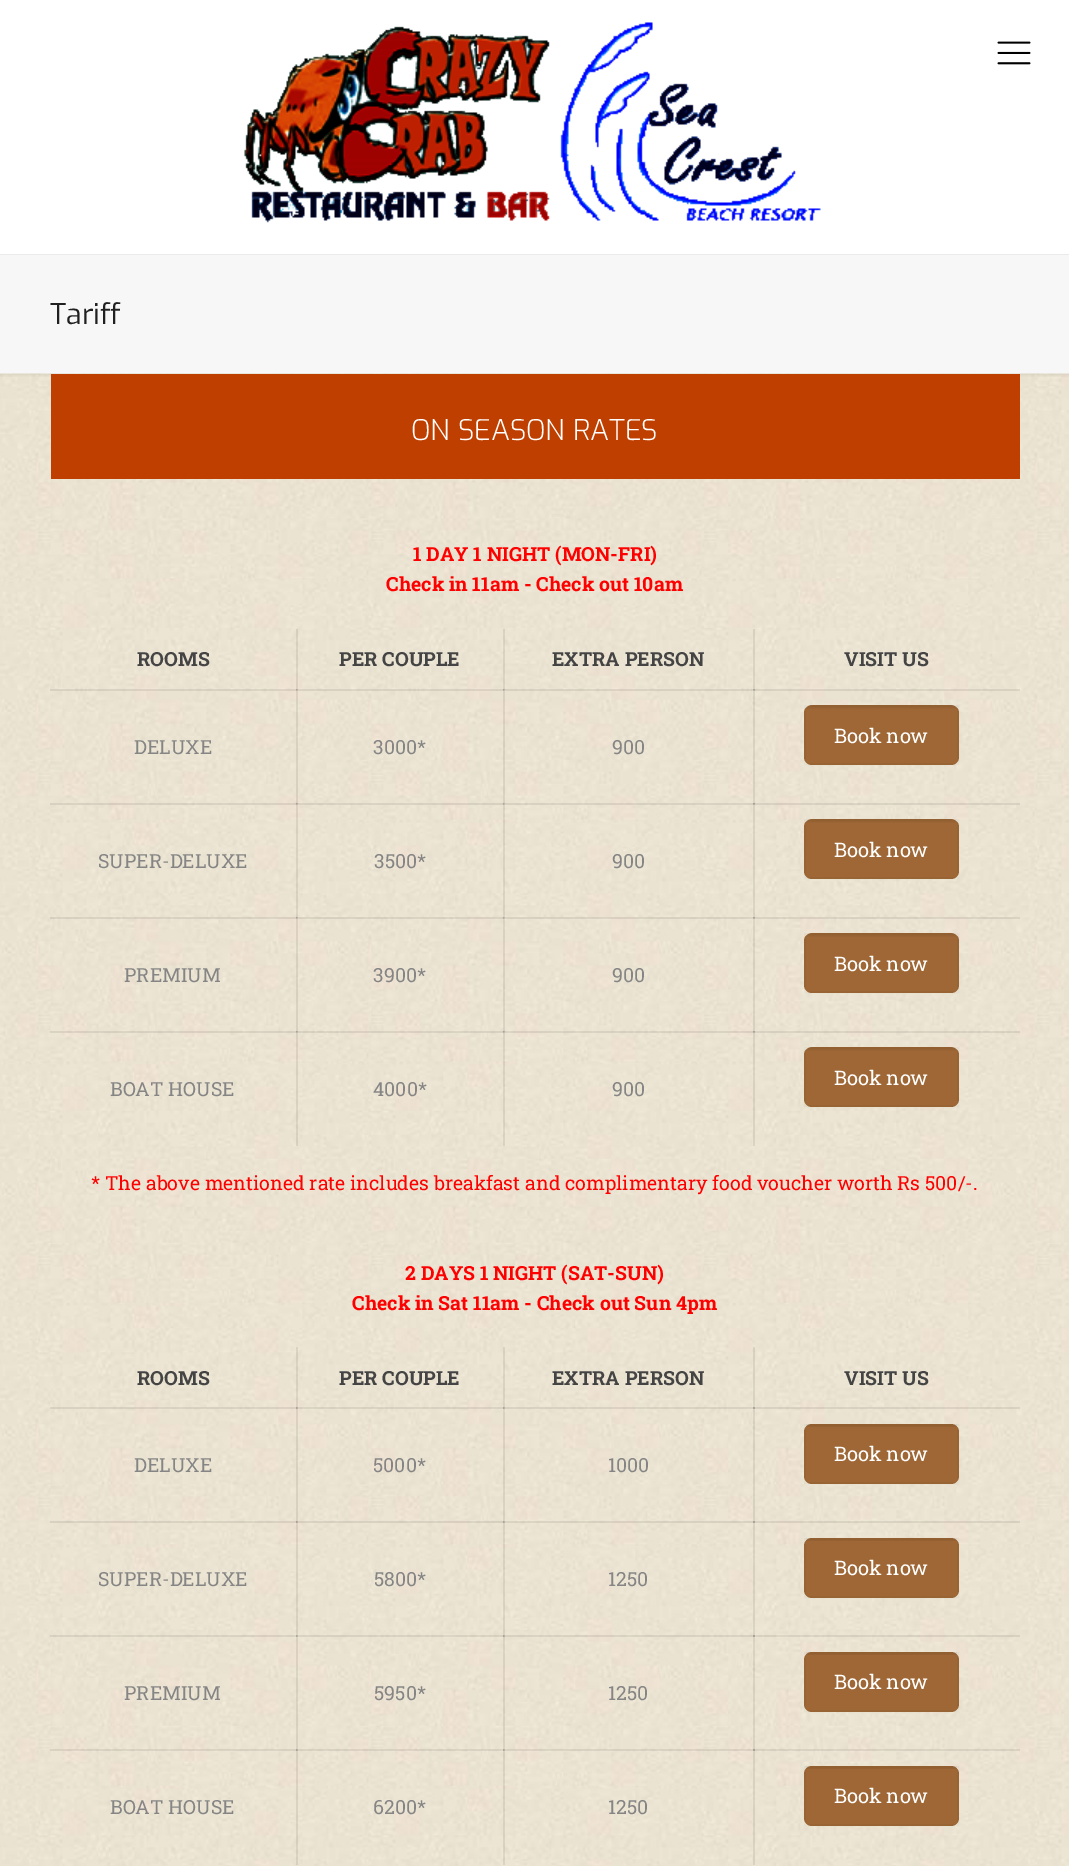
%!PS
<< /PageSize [1069 1866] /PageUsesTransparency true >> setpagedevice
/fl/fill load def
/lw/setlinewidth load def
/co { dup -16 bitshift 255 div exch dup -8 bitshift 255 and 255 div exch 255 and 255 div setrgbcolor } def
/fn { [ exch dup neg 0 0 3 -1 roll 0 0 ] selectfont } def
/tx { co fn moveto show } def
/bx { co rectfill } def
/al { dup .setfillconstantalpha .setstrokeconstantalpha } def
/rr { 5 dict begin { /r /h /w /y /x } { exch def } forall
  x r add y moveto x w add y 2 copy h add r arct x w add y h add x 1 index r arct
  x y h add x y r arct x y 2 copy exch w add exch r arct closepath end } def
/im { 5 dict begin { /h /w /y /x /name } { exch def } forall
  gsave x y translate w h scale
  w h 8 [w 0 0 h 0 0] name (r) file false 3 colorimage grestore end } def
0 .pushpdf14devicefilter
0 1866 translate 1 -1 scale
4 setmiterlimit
0 0 1069 1866 16#FFFFFF bx
0 254 1069 1 16#EBEBEB bx
(media/1.raw) 244 22 577 201 im
(media/2.raw) 997 41 34 24 im
0 255 1069 119 16#F7F7F7 bx
(media/4.raw) 0 373 1069 1493 im
(media/3.raw) 0 373 1069 4 im
51 374 969 105 16#BF3F00 bx
0.08 al
753 1031 2 115 16#000000 bx
753 1031 267 2 16#000000 bx
753 917 2 115 16#000000 bx
753 917 267 2 16#000000 bx
753 803 2 115 16#000000 bx
753 803 267 2 16#000000 bx
753 689 2 115 16#000000 bx
753 689 267 2 16#000000 bx
753 629 2 61 16#000000 bx
503 1031 2 115 16#000000 bx
503 1031 252 2 16#000000 bx
503 917 2 115 16#000000 bx
503 917 252 2 16#000000 bx
503 803 2 115 16#000000 bx
503 803 252 2 16#000000 bx
503 689 2 115 16#000000 bx
503 689 252 2 16#000000 bx
503 629 2 61 16#000000 bx
296 1031 2 115 16#000000 bx
296 1031 208 2 16#000000 bx
296 917 2 115 16#000000 bx
296 917 208 2 16#000000 bx
296 803 2 115 16#000000 bx
296 803 208 2 16#000000 bx
296 689 2 115 16#000000 bx
296 689 208 2 16#000000 bx
296 629 2 61 16#000000 bx
50 689 247 2 16#000000 bx
1 al
16#9E6735 co
804 705 155 60 8 rr fl
(media/5.raw) 806 705 151 4 im
0.03 al
16#000000 co
2 lw
805 706 153 58 rectstroke
0.08 al
50 803 247 2 16#000000 bx
1 al
16#9E6735 co
804 819 155 60 8 rr fl
(media/6.raw) 806 819 151 4 im
0.03 al
16#000000 co
805 820 153 58 rectstroke
0.08 al
50 917 247 2 16#000000 bx
1 al
16#9E6735 co
804 933 155 60 8 rr fl
(media/7.raw) 806 933 151 4 im
0.03 al
16#000000 co
805 934 153 58 rectstroke
0.08 al
50 1031 247 2 16#000000 bx
1 al
16#9E6735 co
804 1047 155 60 8 rr fl
(media/8.raw) 806 1047 151 4 im
0.03 al
16#000000 co
805 1048 153 58 rectstroke
0.08 al
753 1749 2 116 16#000000 bx
753 1749 267 2 16#000000 bx
753 1635 2 116 16#000000 bx
753 1635 267 2 16#000000 bx
753 1521 2 116 16#000000 bx
753 1521 267 2 16#000000 bx
753 1407 2 116 16#000000 bx
753 1407 267 2 16#000000 bx
753 1347 2 62 16#000000 bx
503 1749 2 116 16#000000 bx
503 1749 252 2 16#000000 bx
503 1635 2 116 16#000000 bx
503 1635 252 2 16#000000 bx
503 1521 2 116 16#000000 bx
503 1521 252 2 16#000000 bx
503 1407 2 116 16#000000 bx
503 1407 252 2 16#000000 bx
503 1347 2 62 16#000000 bx
296 1749 2 116 16#000000 bx
296 1749 208 2 16#000000 bx
296 1635 2 116 16#000000 bx
296 1635 208 2 16#000000 bx
296 1521 2 116 16#000000 bx
296 1521 208 2 16#000000 bx
296 1407 2 116 16#000000 bx
296 1407 208 2 16#000000 bx
296 1347 2 62 16#000000 bx
50 1407 247 2 16#000000 bx
1 al
16#9E6735 co
804 1424 155 60 8 rr fl
0.05 al
806 1424 151 3 16#000000 bx
0.03 al
805 1425 153 58 rectstroke
0.08 al
50 1521 247 2 16#000000 bx
1 al
16#9E6735 co
804 1538 155 60 8 rr fl
0.05 al
806 1538 151 3 16#000000 bx
0.03 al
805 1539 153 58 rectstroke
0.08 al
50 1635 247 2 16#000000 bx
1 al
16#9E6735 co
804 1652 155 60 8 rr fl
0.05 al
806 1652 151 3 16#000000 bx
0.03 al
805 1653 153 58 rectstroke
0.08 al
50 1749 247 2 16#000000 bx
1 al
16#9E6735 co
804 1766 155 60 8 rr fl
0.05 al
806 1766 151 3 16#000000 bx
0.03 al
805 1767 153 58 rectstroke
1 al
(Tariff) 50 324 /Exo-Regular 28.5 16#202020 tx
(ON SEASON RATES) 411 440 /Exo-Light 28.5 16#FFFFFF tx
(1 DAY 1 NIGHT \(MON-FRI\)) 413 561 /RobotoSlab-Bold 19.5 16#FF0000 tx
(Check in 11am - Check out 10am) 386 591 /RobotoSlab-Bold 19.5 16#FF0000 tx
(ROOMS) 137 666 /RobotoSlab-Bold 19.5 16#444444 tx
(PER COUPLE) 339 666 /RobotoSlab-Bold 19.5 16#444444 tx
(EXTRA PERSON) 552 666 /RobotoSlab-Bold 19.5 16#444444 tx
(VISIT US) 844 666 /RobotoSlab-Bold 19.5 16#444444 tx
(Book now) 834 743 /RobotoSlab-Regular 20 16#FFFFFF tx
(DELUXE) 134 754 /RobotoSlab-Regular 19.5 16#858585 tx
(3000*) 373 754 /RobotoSlab-Regular 19.5 16#858585 tx
(900) 612 754 /RobotoSlab-Regular 19.5 16#858585 tx
(Book now) 834 857 /RobotoSlab-Regular 20 16#FFFFFF tx
(SUPER-DELUXE) 98 868 /RobotoSlab-Regular 19.5 16#858585 tx
(3500*) 374 868 /RobotoSlab-Regular 19.5 16#858585 tx
(900) 612 868 /RobotoSlab-Regular 19.5 16#858585 tx
(Book now) 834 971 /RobotoSlab-Regular 20 16#FFFFFF tx
(PREMIUM) 124 982 /RobotoSlab-Regular 19.5 16#858585 tx
(3900*) 373 982 /RobotoSlab-Regular 19.5 16#858585 tx
(900) 612 982 /RobotoSlab-Regular 19.5 16#858585 tx
(Book now) 834 1085 /RobotoSlab-Regular 20 16#FFFFFF tx
(BOAT HOUSE) 110 1096 /RobotoSlab-Regular 19.5 16#858585 tx
(4000*) 373 1096 /RobotoSlab-Regular 19.5 16#858585 tx
(900) 612 1096 /RobotoSlab-Regular 19.5 16#858585 tx
(* The above mentioned rate includes breakfast and complimentary food voucher worth Rs 500/-.) 91 1190 /RobotoSlab-Regular 19.5 16#FF0000 tx
(2 DAYS 1 NIGHT \(SAT-SUN\)) 405 1280 /RobotoSlab-Bold 19.5 16#FF0000 tx
(Check in Sat 11am - Check out Sun 4pm) 352 1310 /RobotoSlab-Bold 19.5 16#FF0000 tx
(ROOMS) 137 1385 /RobotoSlab-Bold 19.5 16#444444 tx
(PER COUPLE) 339 1385 /RobotoSlab-Bold 19.5 16#444444 tx
(EXTRA PERSON) 552 1385 /RobotoSlab-Bold 19.5 16#444444 tx
(VISIT US) 844 1385 /RobotoSlab-Bold 19.5 16#444444 tx
(Book now) 834 1461 /RobotoSlab-Regular 20 16#FFFFFF tx
(DELUXE) 134 1472 /RobotoSlab-Regular 19.5 16#858585 tx
(5000*) 373 1472 /RobotoSlab-Regular 19.5 16#858585 tx
(1000) 608 1472 /RobotoSlab-Regular 19.5 16#858585 tx
(Book now) 834 1575 /RobotoSlab-Regular 20 16#FFFFFF tx
(SUPER-DELUXE) 98 1586 /RobotoSlab-Regular 19.5 16#858585 tx
(5800*) 374 1586 /RobotoSlab-Regular 19.5 16#858585 tx
(1250) 608 1586 /RobotoSlab-Regular 19.5 16#858585 tx
(Book now) 834 1689 /RobotoSlab-Regular 20 16#FFFFFF tx
(PREMIUM) 124 1700 /RobotoSlab-Regular 19.5 16#858585 tx
(5950*) 374 1700 /RobotoSlab-Regular 19.5 16#858585 tx
(1250) 608 1700 /RobotoSlab-Regular 19.5 16#858585 tx
(Book now) 834 1803 /RobotoSlab-Regular 20 16#FFFFFF tx
(BOAT HOUSE) 110 1814 /RobotoSlab-Regular 19.5 16#858585 tx
(6200*) 373 1814 /RobotoSlab-Regular 19.5 16#858585 tx
(1250) 608 1814 /RobotoSlab-Regular 19.5 16#858585 tx
.poppdf14devicefilter showpage
